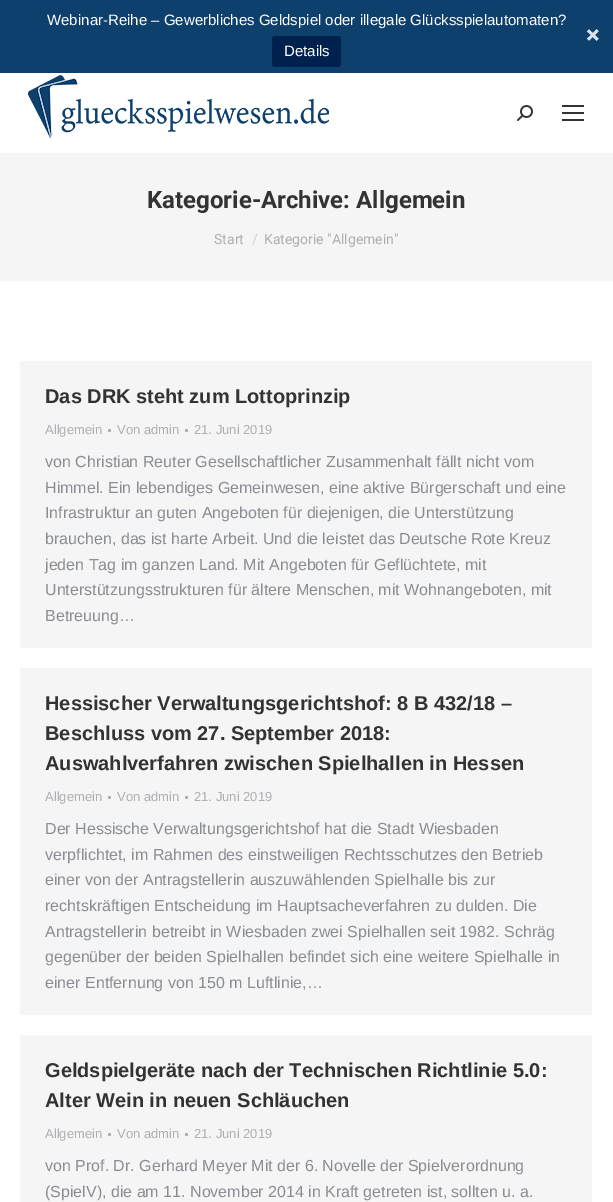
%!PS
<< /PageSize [613 1202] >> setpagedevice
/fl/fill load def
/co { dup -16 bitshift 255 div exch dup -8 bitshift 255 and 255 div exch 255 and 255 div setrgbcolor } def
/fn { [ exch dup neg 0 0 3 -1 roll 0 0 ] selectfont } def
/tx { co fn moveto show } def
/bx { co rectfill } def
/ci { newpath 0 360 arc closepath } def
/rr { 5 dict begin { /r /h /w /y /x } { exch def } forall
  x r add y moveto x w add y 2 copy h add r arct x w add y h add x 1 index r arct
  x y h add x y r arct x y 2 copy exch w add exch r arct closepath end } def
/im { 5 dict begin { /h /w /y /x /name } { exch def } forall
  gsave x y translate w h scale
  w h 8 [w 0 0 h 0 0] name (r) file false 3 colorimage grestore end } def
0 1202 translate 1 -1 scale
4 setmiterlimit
0 0 613 1202 16#FFFFFF bx
0 0 613 73 16#0E406D bx
16#00214E co
272 36 69 31 3 rr fl
(media/1.raw) 586 29 13 12 im
(media/2.raw) 28 75 301 65 im
(media/3.raw) 517 105 16 16 im
562 105 22 2 16#333333 bx
562 112 22 2 16#333333 bx
562 119 22 2 16#333333 bx
0 153 613 128 16#F5F5F5 bx
20 361 572 287 16#F5F5F5 bx
16#ADAFB3 co
109.5 430.5 1.5 ci fl
186.5 430.5 1.5 ci fl
20 668 572 347 16#F5F5F5 bx
16#ADAFB3 co
109.5 797.5 1.5 ci fl
186.5 797.5 1.5 ci fl
20 1035 572 167 16#F5F5F5 bx
16#ADAFB3 co
109.5 1134.5 1.5 ci fl
186.5 1134.5 1.5 ci fl
(Webinar-Reihe – Gewerbliches Geldspiel oder illegale Glücksspielautomaten?) 47 25 /LiberationSans-Regular 15 16#FFFFFF tx
(Details) 284 56 /LiberationSans-Regular 15 16#FFFFFF tx
(Kategorie-Archive: Allgemein) 147 208 /Roboto-Bold 24 16#333333 tx
(Start) 214 244 /Roboto-Regular 14 16#ADAFB3 tx
(/) 252 244 /Roboto-Regular 14 16#D1D2D4 tx
(Kategorie "Allgemein") 264 244 /Roboto-Regular 14 16#ADAFB3 tx
(Das DRK steht zum Lottoprinzip) 45 403 /LiberationSans-Bold 20 16#333333 tx
(Allgemein) 45 434 /LiberationSans-Regular 13 16#ADAFB3 tx
(Von admin) 117 434 /LiberationSans-Regular 13 16#ADAFB3 tx
(21. Juni 2019) 194 434 /LiberationSans-Regular 13 16#ADAFB3 tx
(von Christian Reuter Gesellschaftlicher Zusammenhalt fällt nicht vom) 45 467 /LiberationSans-Regular 16 16#8B8D94 tx
(Himmel. Ein lebendiges Gemeinwesen, eine aktive Bürgerschaft und eine) 45 493 /LiberationSans-Regular 16 16#8B8D94 tx
(Infrastruktur an guten Angeboten für diejenigen, die Unterstützung) 45 518 /LiberationSans-Regular 16 16#8B8D94 tx
(brauchen, das ist harte Arbeit. Und die leistet das Deutsche Rote Kreuz) 45 544 /LiberationSans-Regular 16 16#8B8D94 tx
(jeden Tag im ganzen Land. Mit Angeboten für Geflüchtete, mit) 45 570 /LiberationSans-Regular 16 16#8B8D94 tx
(Unterstützungsstrukturen für ältere Menschen, mit Wohnangeboten, mit) 45 595 /LiberationSans-Regular 16 16#8B8D94 tx
(Betreuung…) 45 621 /LiberationSans-Regular 16 16#8B8D94 tx
(Hessischer Verwaltungsgerichtshof: 8 B 432/18 –) 45 710 /LiberationSans-Bold 20 16#333333 tx
(Beschluss vom 27. September 2018:) 45 740 /LiberationSans-Bold 20 16#333333 tx
(Auswahlverfahren zwischen Spielhallen in Hessen) 45 770 /LiberationSans-Bold 20 16#333333 tx
(Allgemein) 45 801 /LiberationSans-Regular 13 16#ADAFB3 tx
(Von admin) 117 801 /LiberationSans-Regular 13 16#ADAFB3 tx
(21. Juni 2019) 194 801 /LiberationSans-Regular 13 16#ADAFB3 tx
(Der Hessische Verwaltungsgerichtshof hat die Stadt Wiesbaden) 45 834 /LiberationSans-Regular 16 16#8B8D94 tx
(verpflichtet, im Rahmen des einstweiligen Rechtsschutzes den Betrieb) 45 860 /LiberationSans-Regular 16 16#8B8D94 tx
(einer von der Antragstellerin auszuwählenden Spielhalle bis zur) 45 885 /LiberationSans-Regular 16 16#8B8D94 tx
(rechtskräftigen Entscheidung im Hauptsacheverfahren zu dulden. Die) 45 911 /LiberationSans-Regular 16 16#8B8D94 tx
(Antragstellerin betreibt in Wiesbaden zwei Spielhallen seit 1982. Schräg) 45 937 /LiberationSans-Regular 16 16#8B8D94 tx
(gegenüber der beiden Spielhallen befindet sich eine weitere Spielhalle in) 45 962 /LiberationSans-Regular 16 16#8B8D94 tx
(einer Entfernung von 150 m Luftlinie,…) 45 988 /LiberationSans-Regular 16 16#8B8D94 tx
(Geldspielgeräte nach der Technischen Richtlinie 5.0:) 45 1077 /LiberationSans-Bold 20 16#333333 tx
(Alter Wein in neuen Schläuchen) 45 1107 /LiberationSans-Bold 20 16#333333 tx
(Allgemein) 45 1138 /LiberationSans-Regular 13 16#ADAFB3 tx
(Von admin) 117 1138 /LiberationSans-Regular 13 16#ADAFB3 tx
(21. Juni 2019) 194 1138 /LiberationSans-Regular 13 16#ADAFB3 tx
(von Prof. Dr. Gerhard Meyer Mit der 6. Novelle der Spielverordnung) 45 1171 /LiberationSans-Regular 16 16#8B8D94 tx
(\(SpielV\), die am 11. November 2014 in Kraft getreten ist, sollten u. a.) 45 1197 /LiberationSans-Regular 16 16#8B8D94 tx
showpage
